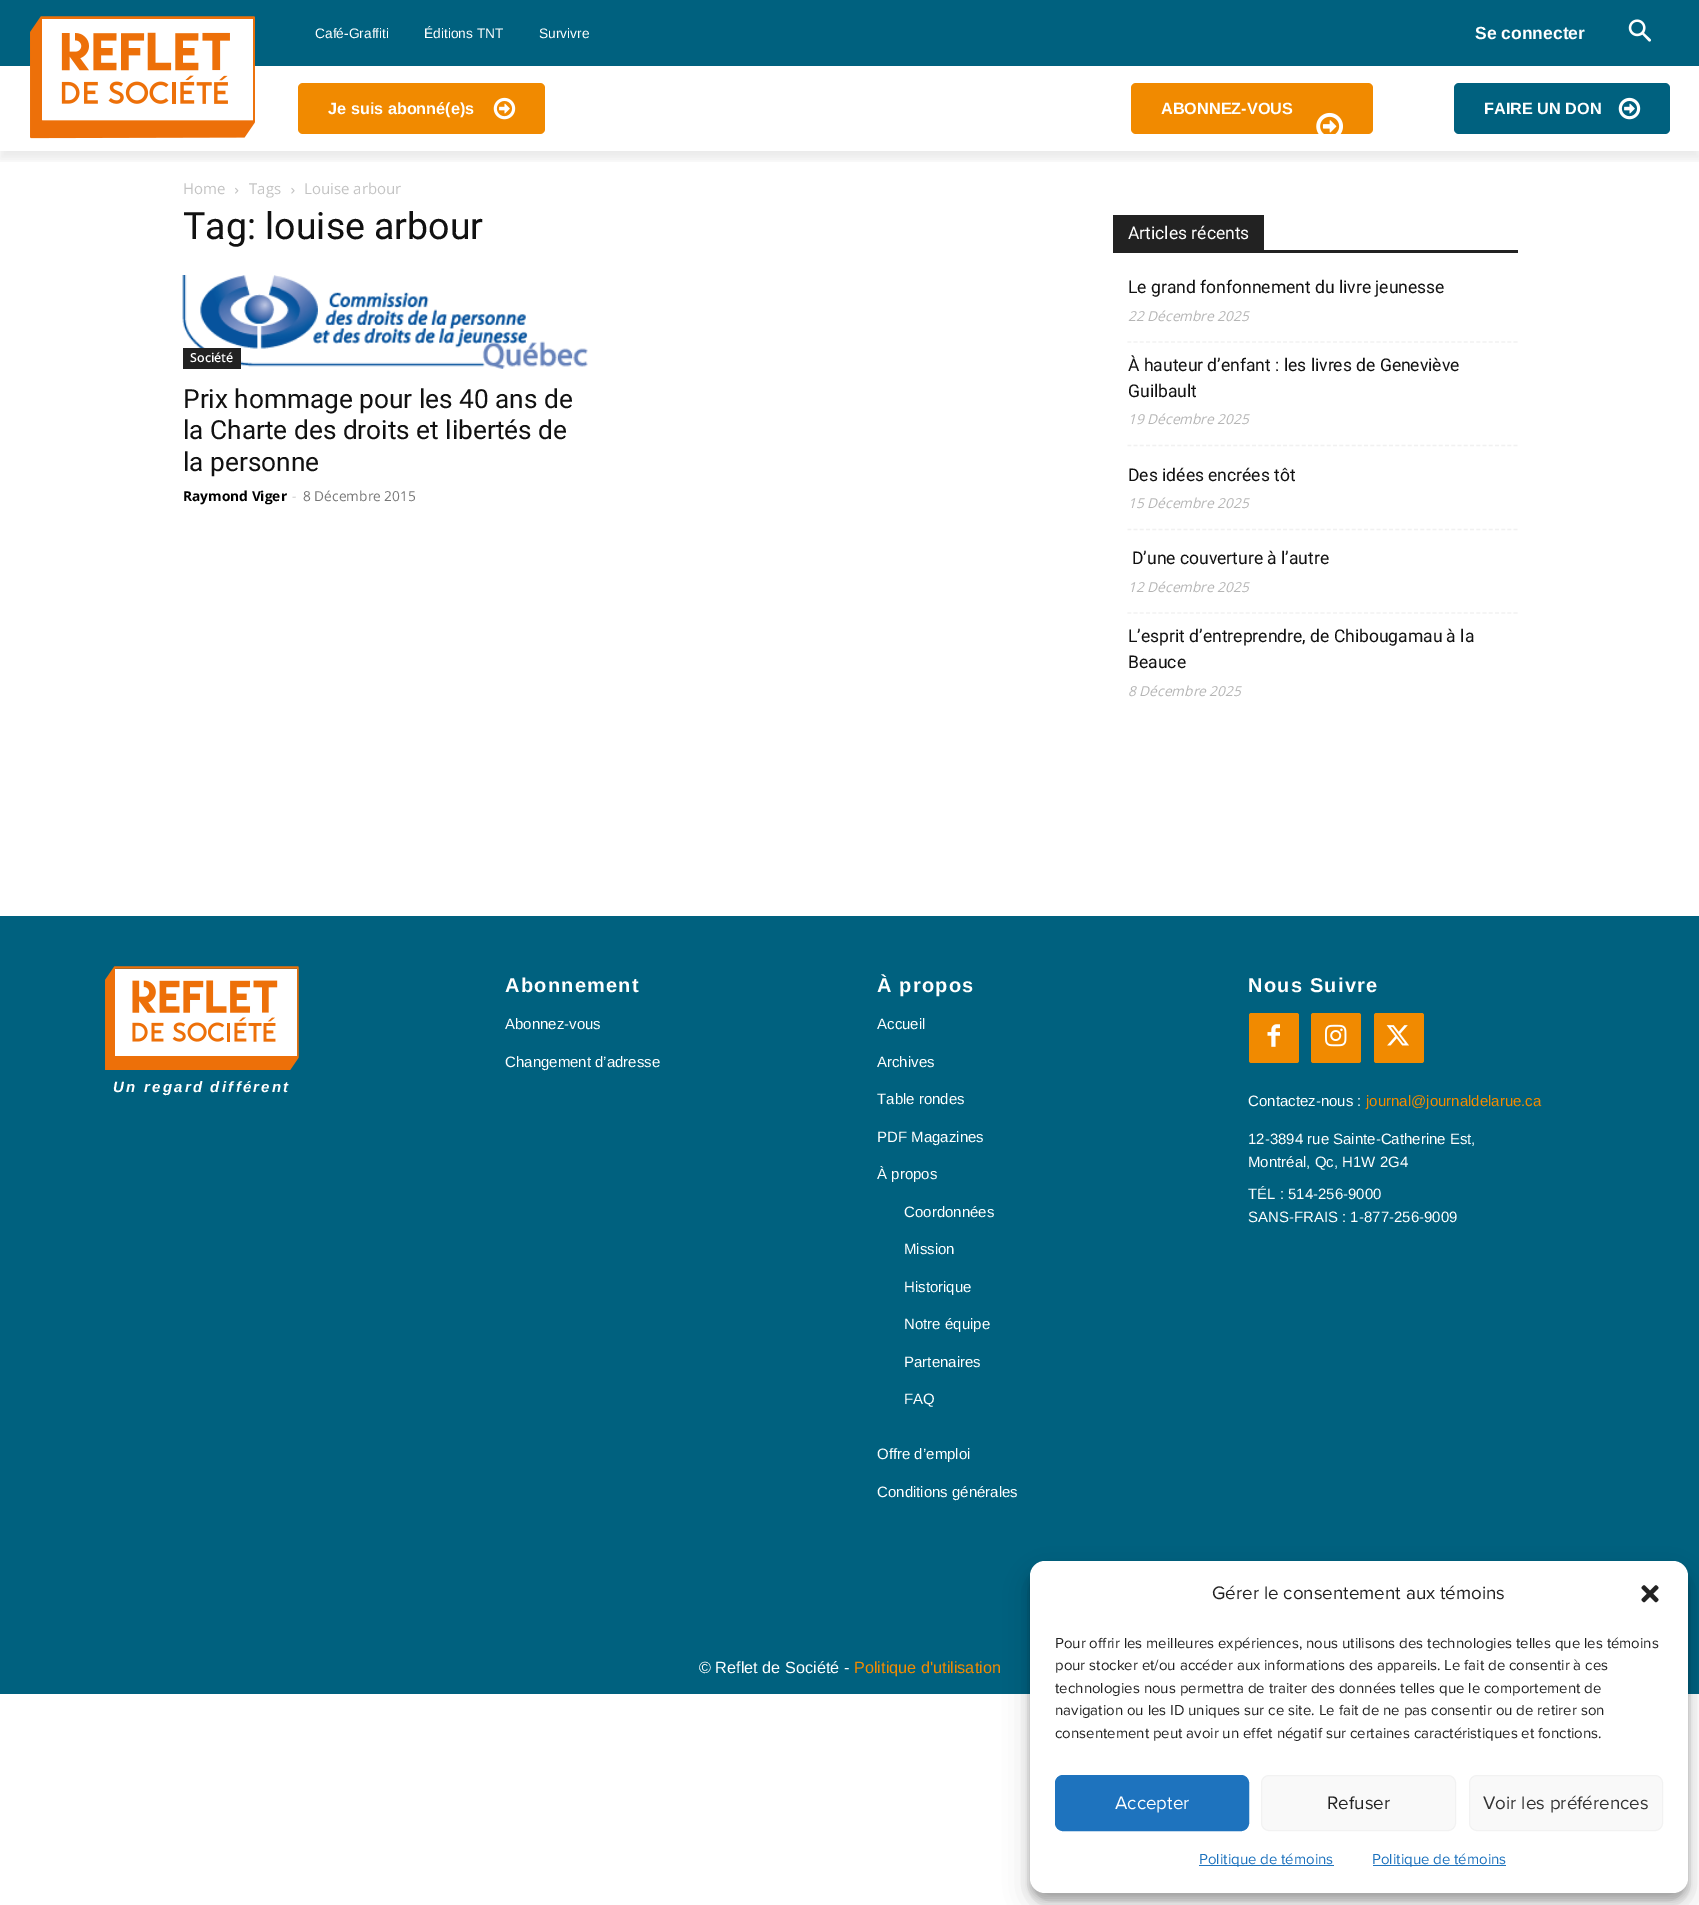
%!PS
<< /PageSize [1699 1905] /PageUsesTransparency true >> setpagedevice
/mt/moveto load def
/li/lineto load def
/fl/fill load def
/st/stroke load def
/gs/gsave load def
/gr/grestore load def
/lw/setlinewidth load def
/co { dup -16 bitshift 255 div exch dup -8 bitshift 255 and 255 div exch 255 and 255 div setrgbcolor } def
/fn { [ exch dup neg 0 0 3 -1 roll 0 0 ] selectfont } def
/tx { co fn moveto show } def
/bx { co rectfill } def
/al { dup .setfillconstantalpha .setstrokeconstantalpha } def
/rr { 5 dict begin { /r /h /w /y /x } { exch def } forall
  x r add y moveto x w add y 2 copy h add r arct x w add y h add x 1 index r arct
  x y h add x y r arct x y 2 copy exch w add exch r arct closepath end } def
/sh { 12 dict begin { /a /b /q /h /w /y /x } { exch def } forall gsave /was 0 def
  9 -2 -9 { dup b mul 4 div /e exch def 1 sub .425 mul 2.718 exch exp 1 add a .99 .min exch div /now exch def
    1 1 now sub 1 was sub div sub al /was now def
    w h .min e 2 mul add 0 gt { x e sub y e sub w e 2 mul add h e 2 mul add
      q e add b .6 mul add w h .min 2 div e add .min 0 .max rr fill } if } for grestore end } def
/im { 5 dict begin { /h /w /y /x /name } { exch def } forall
  gsave x y translate w h scale
  w h 8 [w 0 0 h 0 0] name (r) file false 3 colorimage grestore end } def
0 .pushpdf14devicefilter
0 1905 translate 1 -1 scale
4 setmiterlimit
0 0 1699 1905 16#FFFFFF bx
0 0 1699 66 16#00617F bx
(media/2.raw) 30 16 225 123 im
16#F18A00 co
298 83 247 51 5 rr fl
(media/3.raw) 493 97 23 23 im
1131 83 242 51 5 rr fl
(media/4.raw) 1316 112 27 22 im
16#00617F co
1454 83 216 51 5 rr fl
(media/5.raw) 1618 97 23 23 im
gs
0 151 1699 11 rectclip
16#000000 co
0 8 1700 151 0 5 .08 sh
gr
(media/1.raw) 1628 19 23 23 im
(media/6.raw) 235 187 4 7 im
(media/7.raw) 291 187 4 7 im
(media/8.raw) 182 275 406 94 im
183 348 58 21 16#222222 bx
1113 250 405 3 16#222222 bx
1113 215 151 35 16#222222 bx
16#F1F1F1 co
1.2 lw
[3.75 2.48] 0 setdash
1127.5 342 mt 1517.5 342 li st
1127.5 445.5 mt 1517.5 445.5 li st
1127.5 529.5 mt 1517.5 529.5 li st
1127.5 613 mt 1517.5 613 li st
0 916 1699 778 16#00617F bx
(media/9.raw) 105 966 194 104 im
16#F18A00 co
1249 1013 50 50 2.5 rr fl
(media/10.raw) 1267 1024 13 23 im
1311 1013 50 50 2.5 rr fl
(media/11.raw) 1325 1024 22 23 im
1374 1013 50 50 2.5 rr fl
(media/12.raw) 1386 1025 23 21 im
16#000000 co
1030 1569 658 331 15 4 .23 sh
1030 1574 658 331 15 12.5 .19 sh
16#FFFFFF co
1030 1561 658 332 15 rr fl
(media/13.raw) 1641 1585 18 18 im
16#1E73BE co
1055.5 1775.5 193 55 7.5 rr gs fl gr
1 lw
[] 0 setdash
st
16#F9F9F9 co
1261.5 1775.5 194 55 7.5 rr gs fl gr
16#F2F2F2 co
st
16#F9F9F9 co
1469.5 1775.5 193 55 7.5 rr gs fl gr
16#F2F2F2 co
st
1199 1865 135 1 16#1E73BE bx
1373 1865 133 1 16#1E73BE bx
(Café-Graffiti) 315 38 /LiberationSans-Regular 13.75 16#FFFFFF tx
(Éditions TNT) 424 38 /LiberationSans-Regular 13.75 16#FFFFFF tx
(Survivre) 539 38 /LiberationSans-Regular 13.75 16#FFFFFF tx
(Se connecter) 1475 39 /LiberationSans-Bold 17.5 16#FFFFFF tx
(Je suis abonné\(e\)s) 328 114 /LiberationSans-Bold 16.25 16#FFFFFF tx
(ABONNEZ-VOUS) 1161 114 /LiberationSans-Bold 16.25 16#FFFFFF tx
(FAIRE UN DON) 1484 114 /LiberationSans-Bold 16.25 16#FFFFFF tx
(Home) 183 194 /OpenSans-Regular 15 16#C3C3C3 tx
(Tags) 249 194 /OpenSans-Regular 15 16#C3C3C3 tx
(Louise arbour) 304 194 /OpenSans-Regular 15 16#C3C3C3 tx
(Tag: louise arbour) 183 239 /Roboto-Regular 37.5 16#111111 tx
(Société) 190 362 /OpenSans-SemiBold 12.5 16#FFFFFF tx
(Prix hommage pour les 40 ans de) 183 408 /Roboto-Regular 26.25 16#111111 tx
(la Charte des droits et libertés de) 183 439 /Roboto-Regular 26.25 16#111111 tx
(la personne) 183 471 /Roboto-Regular 26.25 16#111111 tx
(Raymond Viger) 183 501 /OpenSans-Bold 13.75 16#000000 tx
(-) 292 501 /OpenSans-Regular 13.75 16#CCCCCC tx
(8 Décembre 2015) 303 501 /OpenSans-Regular 13.75 16#767676 tx
(Articles récents) 1128 239 /Roboto-Regular 17.5 16#FFFFFF tx
(Le grand fonfonnement du livre jeunesse) 1128 293 /Roboto-Regular 17.5 16#111111 tx
(22 Décembre 2025) 1128 321 /OpenSans-Italic 13.75 16#B5B5B5 tx
(À hauteur d’enfant : les livres de Geneviève) 1128 371 /Roboto-Regular 17.5 16#111111 tx
(Guilbault) 1128 397 /Roboto-Regular 17.5 16#111111 tx
(19 Décembre 2025) 1128 424 /OpenSans-Italic 13.75 16#B5B5B5 tx
(Des idées encrées tôt) 1128 481 /Roboto-Regular 17.5 16#111111 tx
(15 Décembre 2025) 1128 508 /OpenSans-Italic 13.75 16#B5B5B5 tx
(D’une couverture à l’autre) 1132 564 /Roboto-Regular 17.5 16#111111 tx
(12 Décembre 2025) 1128 592 /OpenSans-Italic 13.75 16#B5B5B5 tx
(L’esprit d’entreprendre, de Chibougamau à la) 1128 642 /Roboto-Regular 17.5 16#111111 tx
(Beauce) 1128 668 /Roboto-Regular 17.5 16#111111 tx
(8 Décembre 2025) 1128 696 /OpenSans-Italic 13.75 16#B5B5B5 tx
/LiberationSans-BoldItalic 15 fn
16#FFFFFF co
113 1092 mt 2.25 0 (Un regard différent) ashow
/LiberationSans-Bold 20 fn
505 992 mt 1.25 0 (Abonnement) ashow
(Abonnez-vous) 505 1029 /LiberationSans-Regular 15 16#FFFFFF tx
(Changement d’adresse) 505 1067 /LiberationSans-Regular 15 16#FFFFFF tx
/LiberationSans-Bold 20 fn
877 992 mt 1.25 0 (À propos) ashow
(Accueil) 877 1029 /LiberationSans-Regular 15 16#FFFFFF tx
(Archives) 877 1067 /LiberationSans-Regular 15 16#FFFFFF tx
(Table rondes) 877 1104 /LiberationSans-Regular 15 16#FFFFFF tx
(PDF Magazines) 877 1142 /LiberationSans-Regular 15 16#FFFFFF tx
(À propos) 877 1179 /LiberationSans-Regular 15 16#FFFFFF tx
(Coordonnées) 904 1217 /LiberationSans-Regular 15 16#FFFFFF tx
(Mission) 904 1254 /LiberationSans-Regular 15 16#FFFFFF tx
(Historique) 904 1292 /LiberationSans-Regular 15 16#FFFFFF tx
(Notre équipe) 904 1329 /LiberationSans-Regular 15 16#FFFFFF tx
(Partenaires) 904 1367 /LiberationSans-Regular 15 16#FFFFFF tx
(FAQ) 904 1404 /LiberationSans-Regular 15 16#FFFFFF tx
(Offre d’emploi) 877 1459 /LiberationSans-Regular 15 16#FFFFFF tx
(Conditions générales) 877 1497 /LiberationSans-Regular 15 16#FFFFFF tx
/LiberationSans-Bold 20 fn
1248 992 mt 1.25 0 (Nous Suivre) ashow
(Contactez-nous :) 1248 1106 /LiberationSans-Regular 15 16#FFFFFF tx
(journal@journaldelarue.ca) 1366 1106 /LiberationSans-Regular 15 16#F18A00 tx
(12-3894 rue Sainte-Catherine Est,) 1248 1144 /LiberationSans-Regular 15 16#FFFFFF tx
(Montréal, Qc, H1W 2G4) 1248 1167 /LiberationSans-Regular 15 16#FFFFFF tx
(TÉL : 514-256-9000) 1248 1199 /LiberationSans-Regular 15 16#FFFFFF tx
(SANS-FRAIS : 1-877-256-9009) 1248 1222 /LiberationSans-Regular 15 16#FFFFFF tx
(© Reflet de Société -) 699 1673 /LiberationSans-Regular 16.25 16#FFFFFF tx
(Politique d'utilisation) 854 1673 /LiberationSans-Regular 16.25 16#F18A00 tx
(Gérer le consentement aux témoins) 1212 1599 /ProximaNova-Regular 18.75 16#222222 tx
(Pour offrir les meilleures expériences, nous utilisons des technologies telles que les témoins) 1055 1648 /ProximaNova-Regular 15 16#222222 tx
(pour stocker et/ou accéder aux informations des appareils. Le fait de consentir à ces) 1055 1670 /ProximaNova-Regular 15 16#222222 tx
(technologies nous permettra de traiter des données telles que le comportement de) 1055 1693 /ProximaNova-Regular 15 16#222222 tx
(navigation ou les ID uniques sur ce site. Le fait de ne pas consentir ou de retirer son) 1055 1715 /ProximaNova-Regular 15 16#222222 tx
(consentement peut avoir un effet négatif sur certaines caractéristiques et fonctions.) 1055 1738 /ProximaNova-Regular 15 16#222222 tx
(Accepter) 1115 1809 /ProximaNova-Regular 18.75 16#FFFFFF tx
(Refuser) 1327 1809 /ProximaNova-Regular 18.75 16#222222 tx
(Voir les préférences) 1483 1809 /ProximaNova-Regular 18.75 16#333333 tx
(Politique de témoins) 1199 1864 /ProximaNova-Regular 15 16#1E73BE tx
(Politique de témoins) 1372 1864 /ProximaNova-Regular 15 16#1E73BE tx
.poppdf14devicefilter showpage
